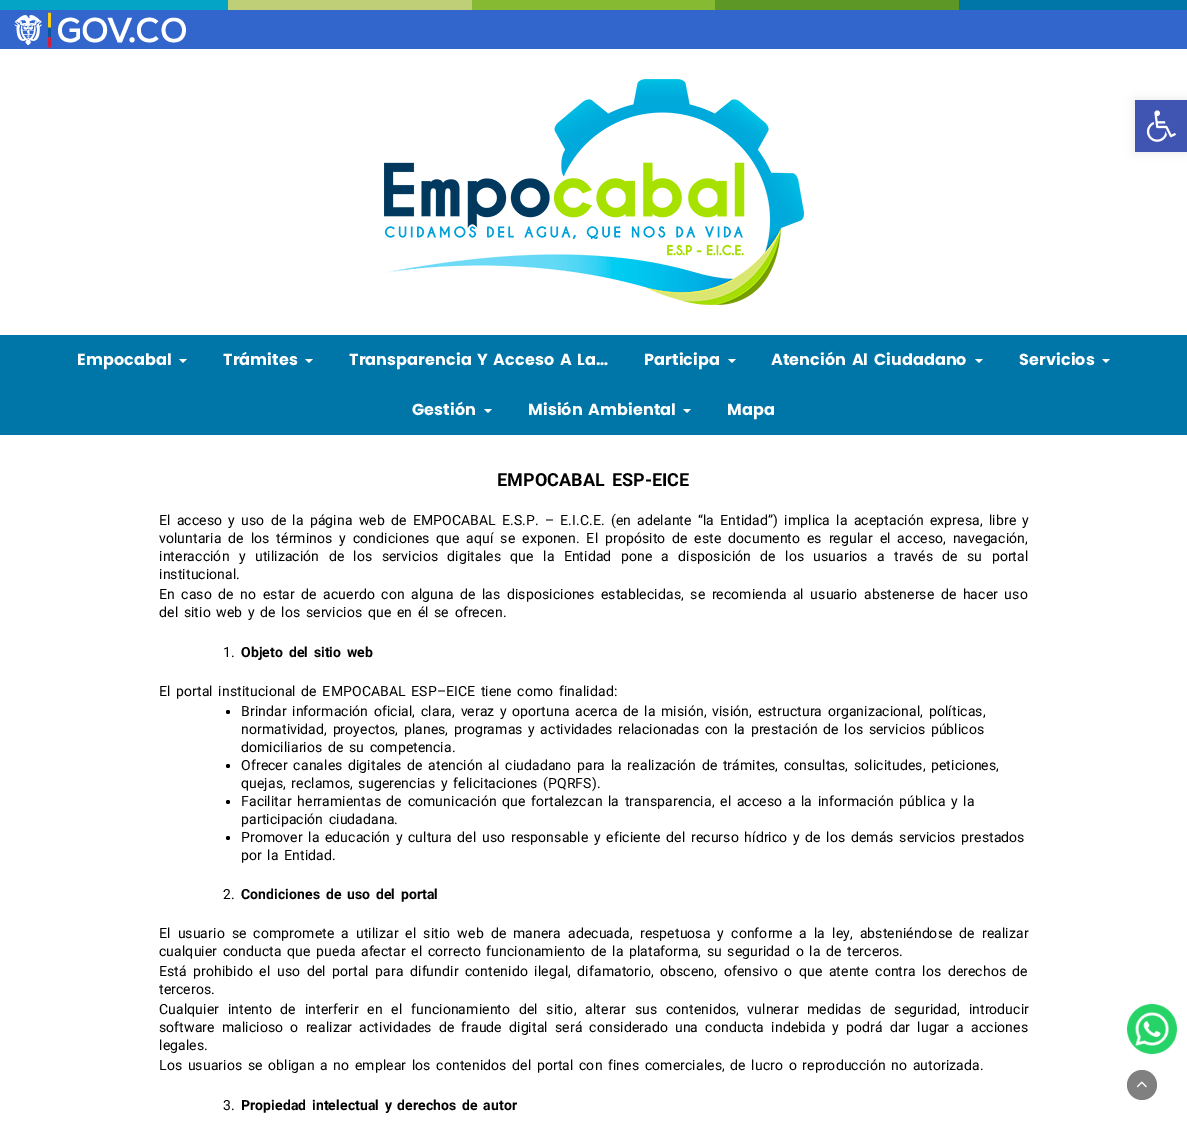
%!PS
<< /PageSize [1187 1130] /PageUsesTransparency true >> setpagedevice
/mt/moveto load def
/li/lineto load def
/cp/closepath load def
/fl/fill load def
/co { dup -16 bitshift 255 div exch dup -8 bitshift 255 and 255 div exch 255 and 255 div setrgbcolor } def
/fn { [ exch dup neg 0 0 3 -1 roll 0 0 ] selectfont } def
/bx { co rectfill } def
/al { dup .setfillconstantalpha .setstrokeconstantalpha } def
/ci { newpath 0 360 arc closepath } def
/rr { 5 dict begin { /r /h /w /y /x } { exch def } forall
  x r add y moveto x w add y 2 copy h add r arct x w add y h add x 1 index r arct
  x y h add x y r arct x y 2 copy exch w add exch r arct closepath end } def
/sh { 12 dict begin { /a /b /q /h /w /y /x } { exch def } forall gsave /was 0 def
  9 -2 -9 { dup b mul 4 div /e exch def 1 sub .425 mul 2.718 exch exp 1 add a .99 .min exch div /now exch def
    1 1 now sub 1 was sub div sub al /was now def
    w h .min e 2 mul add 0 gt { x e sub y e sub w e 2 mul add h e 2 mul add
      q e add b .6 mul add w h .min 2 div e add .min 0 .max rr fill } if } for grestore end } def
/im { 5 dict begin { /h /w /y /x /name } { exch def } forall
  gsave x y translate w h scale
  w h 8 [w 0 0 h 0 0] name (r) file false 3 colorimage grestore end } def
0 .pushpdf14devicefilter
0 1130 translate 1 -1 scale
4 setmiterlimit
0 0 1187 1130 16#FFFFFF bx
0 0 228 10 16#03A4C5 bx
228 0 244 10 16#BECF78 bx
472 0 243 10 16#87BA33 bx
715 0 244 10 16#5D9826 bx
959 0 228 10 16#0076A8 bx
0 10 1187 39 16#3366CC bx
(media/1.raw) 14 12 172 36 im
16#000000 co
1135 100 52 52 0 5 .1 sh
1135 100 52 52 16#4054B2 bx
(media/2.raw) 1146 110 30 32 im
(media/3.raw) 384 79 420 226 im
0 335 1187 100 16#0076A8 bx
16#FFFFFF co
179 359 mt 187 359 li 183 363 li cp fl
305 359 mt 313 359 li 309 363 li cp fl
728 359 mt 736 359 li 732 363 li cp fl
975 359 mt 983 359 li 979 363 li cp fl
1102 359 mt 1110 359 li 1106 363 li cp fl
484 409 mt 492 409 li 488 413 li cp fl
683 409 mt 691 409 li 687 413 li cp fl
16#000000 co
228 712 2 ci fl
228 766 2 ci fl
228 802 2 ci fl
228 838 2 ci fl
(media/4.raw) 1127 1004 50 50 im
16#808080 co
1142 1085 15 ci fl
(media/5.raw) 1136 1081 11 7 im
/Poppins-Bold 16 fn
16#FFFFFF co
77 365 mt .1 0 (Empocabal) ashow
223 365 mt .1 0 (Trámites) ashow
349 365 mt 2 0 32 .1 0 (Transparencia Y Acceso A La…) awidthshow
644 365 mt .1 0 (Participa) ashow
771 365 mt 2 0 32 .1 0 (Atención Al Ciudadano) awidthshow
1019 365 mt .1 0 (Servicios) ashow
412 415 mt .1 0 (Gestión) ashow
528 415 mt 2 0 32 .1 0 (Misión Ambiental) awidthshow
727 415 mt .1 0 (Mapa) ashow
/Roboto-Bold 18 fn
16#000000 co
497 486 mt 2 0 32 .1 0 (EMPOCABAL ESP-EICE) awidthshow
/Roboto-Regular 14 fn
159 525 mt 2.6 0 32 .1 0 (El acceso y uso de la página web de EMPOCABAL E.S.P. – E.I.C.E. \(en adelante “la Entidad”\) implica la aceptación expresa, libre y) awidthshow
159 543 mt 3.25 0 32 .1 0 (voluntaria de los términos y condiciones que aquí se exponen. El propósito de este documento es regular el acceso, navegación,) awidthshow
159 561 mt 5.75 0 32 .1 0 (interacción y utilización de los servicios digitales que la Entidad pone a disposición de los usuarios a través de su portal) awidthshow
159 579 mt .1 0 (institucional.) ashow
159 599 mt 2.9 0 32 .1 0 (En caso de no estar de acuerdo con alguna de las disposiciones establecidas, se recomienda al usuario abstenerse de hacer uso) awidthshow
159 617 mt 2 0 32 .1 0 (del sitio web y de los servicios que en él se ofrecen.) awidthshow
223 657 mt .1 0 (1.) ashow
/Roboto-Bold 14 fn
241 657 mt 2 0 32 .1 0 (Objeto del sitio web) awidthshow
/Roboto-Regular 14 fn
159 696 mt 2 0 32 .1 0 (El portal institucional de EMPOCABAL ESP–EICE tiene como finalidad:) awidthshow
241 716 mt 2 0 32 .1 0 (Brindar información oficial, clara, veraz y oportuna acerca de la misión, visión, estructura organizacional, políticas,) awidthshow
241 734 mt 2 0 32 .1 0 (normatividad, proyectos, planes, programas y actividades relacionadas con la prestación de los servicios públicos) awidthshow
241 752 mt 2 0 32 .1 0 (domiciliarios de su competencia.) awidthshow
241 770 mt 2 0 32 .1 0 (Ofrecer canales digitales de atención al ciudadano para la realización de trámites, consultas, solicitudes, peticiones,) awidthshow
241 788 mt 2 0 32 .1 0 (quejas, reclamos, sugerencias y felicitaciones \(PQRFS\).) awidthshow
241 806 mt 2 0 32 .1 0 (Facilitar herramientas de comunicación que fortalezcan la transparencia, el acceso a la información pública y la) awidthshow
241 824 mt 2 0 32 .1 0 (participación ciudadana.) awidthshow
241 842 mt 2 0 32 .1 0 (Promover la educación y cultura del uso responsable y eficiente del recurso hídrico y de los demás servicios prestados) awidthshow
241 860 mt 2 0 32 .1 0 (por la Entidad.) awidthshow
223 899 mt .1 0 (2.) ashow
/Roboto-Bold 14 fn
241 899 mt 2 0 32 .1 0 (Condiciones de uso del portal) awidthshow
/Roboto-Regular 14 fn
159 938 mt 3.4 0 32 .1 0 (El usuario se compromete a utilizar el sitio web de manera adecuada, respetuosa y conforme a la ley, absteniéndose de realizar) awidthshow
159 956 mt 2 0 32 .1 0 (cualquier conducta que pueda afectar el correcto funcionamiento de la plataforma, su seguridad o la de terceros.) awidthshow
159 976 mt 2.9 0 32 .1 0 (Está prohibido el uso del portal para difundir contenido ilegal, difamatorio, obsceno, ofensivo o que atente contra los derechos de) awidthshow
159 994 mt .1 0 (terceros.) ashow
159 1014 mt 5.1 0 32 .1 0 (Cualquier intento de interferir en el funcionamiento del sitio, alterar sus contenidos, vulnerar medidas de seguridad, introducir) awidthshow
159 1032 mt 3.5 0 32 .1 0 (software malicioso o realizar actividades de fraude digital será considerado una conducta indebida y podrá dar lugar a acciones) awidthshow
159 1050 mt .1 0 (legales.) ashow
159 1070 mt 2 0 32 .1 0 (Los usuarios se obligan a no emplear los contenidos del portal con fines comerciales, de lucro o reproducción no autorizada.) awidthshow
223 1110 mt .1 0 (3.) ashow
/Roboto-Bold 14 fn
241 1110 mt 2 0 32 .1 0 (Propiedad intelectual y derechos de autor) awidthshow
.poppdf14devicefilter showpage
